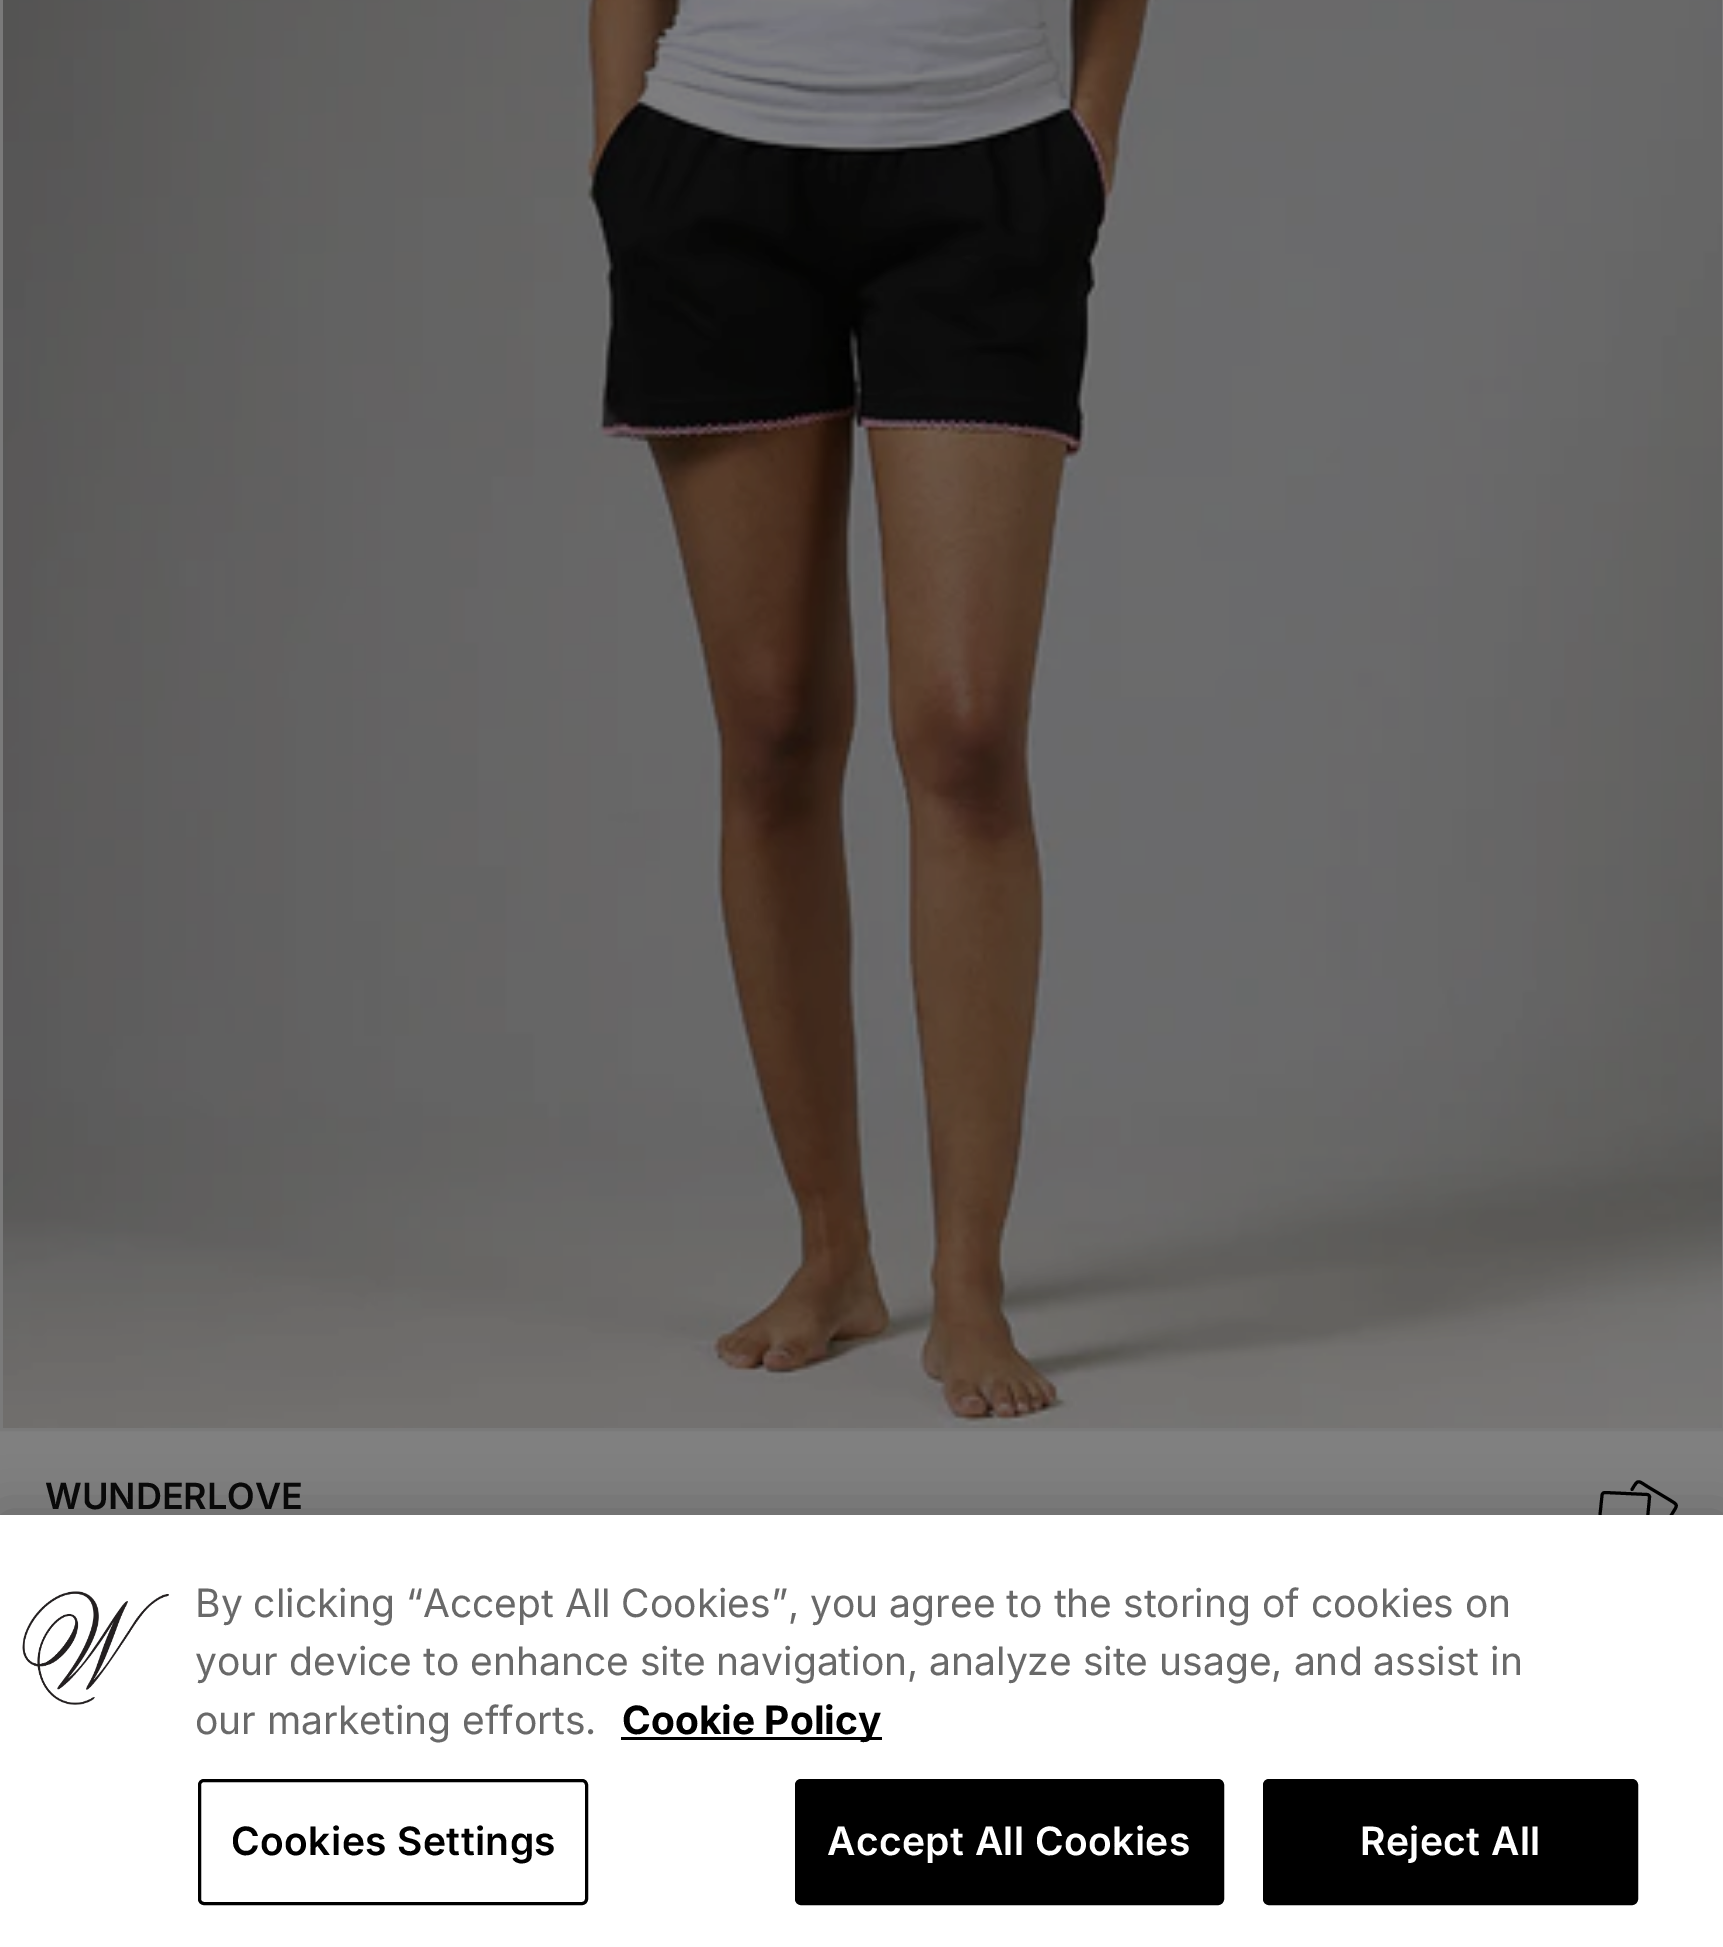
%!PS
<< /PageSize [1723 1947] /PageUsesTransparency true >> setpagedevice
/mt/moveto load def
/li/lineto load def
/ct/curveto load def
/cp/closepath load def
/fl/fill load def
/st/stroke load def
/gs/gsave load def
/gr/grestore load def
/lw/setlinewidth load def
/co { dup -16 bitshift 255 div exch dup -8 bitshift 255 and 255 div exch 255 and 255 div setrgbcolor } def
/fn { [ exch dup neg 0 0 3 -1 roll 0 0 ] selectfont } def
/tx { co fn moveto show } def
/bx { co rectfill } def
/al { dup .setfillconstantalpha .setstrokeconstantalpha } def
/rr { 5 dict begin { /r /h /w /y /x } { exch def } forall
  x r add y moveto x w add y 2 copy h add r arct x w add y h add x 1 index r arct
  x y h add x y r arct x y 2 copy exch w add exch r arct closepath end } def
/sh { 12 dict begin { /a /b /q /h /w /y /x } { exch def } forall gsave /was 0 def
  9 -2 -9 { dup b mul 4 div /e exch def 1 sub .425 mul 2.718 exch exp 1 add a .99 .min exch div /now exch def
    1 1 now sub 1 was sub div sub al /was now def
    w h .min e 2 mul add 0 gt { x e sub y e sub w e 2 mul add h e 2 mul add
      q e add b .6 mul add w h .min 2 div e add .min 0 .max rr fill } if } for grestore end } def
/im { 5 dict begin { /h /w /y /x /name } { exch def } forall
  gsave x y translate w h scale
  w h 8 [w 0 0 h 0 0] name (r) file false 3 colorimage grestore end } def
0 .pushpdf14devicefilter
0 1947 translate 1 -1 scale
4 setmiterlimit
0 0 1723 1947 16#808080 bx
16#7A7A7A co
3 lw
1.5 -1.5 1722 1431 rectstroke
(media/1.raw) 3 0 1719 1428 im
16#000000 co
1 setlinecap
1 setlinejoin
1605 1492.5 mt 1647 1494.5 li 1648.5 1494.5 1650 1496 1649.5 1497.5 ct 1644 1556 li 1644 1557.5 1642.5 1559 1640.5 1559 ct 1599 1557 li 1597 1556.5 1596 1555.5 1596 1553.5 ct 1602 1495.5 li 1602 1493.5 1603.5 1492.5 1605 1492.5 ct cp st
1653 1546.5 mt 1672 1514 li 1678 1504 1678.5 1505.5 1669 1499.5 ct 1651.5 1489 li 1637.5 1481 1639 1477.5 1632 1489.5 ct st
0 1515 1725 432 0 27 .2 sh
0 1515 1723 432 16#FFFFFF bx
(media/2.raw) 22 1591 147 114 im
621 1737 261 3 16#000000 bx
0 setlinecap
0 setlinejoin
199.5 1780.5 387 123 4.5 rr st
796.5 1780.5 426 123 4.5 rr gs fl gr
st
1264.5 1780.5 372 123 4.5 rr gs fl gr
st
(WUNDERLOVE) 45 1509 /Inter-SemiBold 36 16#090909 tx
(By clicking “Accept All Cookies”, you agree to the storing of cookies on) 195 1617 /Inter-Regular 39 16#696969 tx
(your device to enhance site navigation, analyze site usage, and assist in) 195 1675 /Inter-Regular 39 16#696969 tx
(our marketing efforts.) 195 1734 /Inter-Regular 39 16#696969 tx
(Cookie Policy) 622 1734 /Inter-Bold 39 16#000000 tx
/Inter-SemiBold 39 fn
231 1855 mt .4 0 (Cookies Settings) ashow
16#FFFFFF co
827 1855 mt .4 0 (Accept All Cookies) ashow
1360 1855 mt .4 0 (Reject All) ashow
.poppdf14devicefilter showpage
